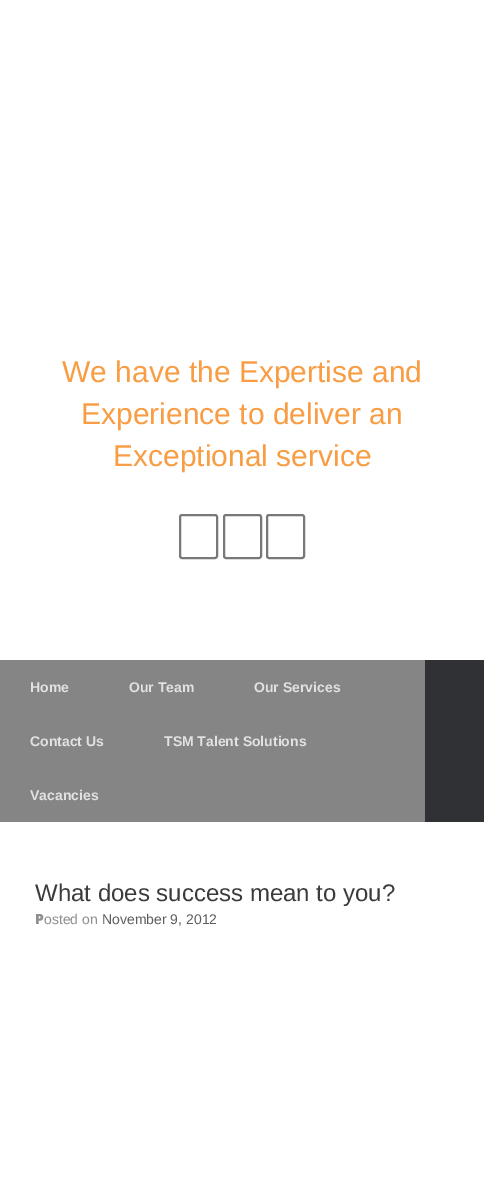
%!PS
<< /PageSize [484 1199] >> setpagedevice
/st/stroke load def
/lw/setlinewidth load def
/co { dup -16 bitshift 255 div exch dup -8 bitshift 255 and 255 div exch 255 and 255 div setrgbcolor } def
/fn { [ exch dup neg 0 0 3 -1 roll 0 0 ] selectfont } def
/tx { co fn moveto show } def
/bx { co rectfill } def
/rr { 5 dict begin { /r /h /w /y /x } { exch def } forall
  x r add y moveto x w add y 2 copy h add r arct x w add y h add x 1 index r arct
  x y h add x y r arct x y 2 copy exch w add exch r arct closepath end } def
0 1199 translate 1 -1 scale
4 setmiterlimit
0 0 484 1199 16#FFFFFF bx
16#787878 co
2 lw
180 515 37 43 2 rr st
224 515 37 43 2 rr st
267 515 37 43 2 rr st
0 660 425 162 16#858585 bx
425 660 59 162 16#303134 bx
(We have the Expertise and) 62 382 /LiberationSans-Regular 30 16#F99D45 tx
(Experience to deliver an) 81 424 /LiberationSans-Regular 30 16#F99D45 tx
(Exceptional service) 113 466 /LiberationSans-Regular 30 16#F99D45 tx
(Home) 30 692 /LiberationSans-Bold 14 16#E2E2E2 tx
(Our Team) 129 692 /LiberationSans-Bold 14 16#E2E2E2 tx
(Our Services) 254 692 /LiberationSans-Bold 14 16#E2E2E2 tx
(Contact Us) 30 746 /LiberationSans-Bold 14 16#E2E2E2 tx
(TSM Talent Solutions) 164 746 /LiberationSans-Bold 14 16#E2E2E2 tx
(Vacancies) 30 800 /LiberationSans-Bold 14 16#E2E2E2 tx
(What does success mean to you?) 35 901 /LiberationSans-Regular 24 16#3B3B3B tx
(P) 35 924 /NotoSans-Black 14 16#8F8F8F tx
(osted on) 44 924 /LiberationSans-Regular 14 16#8F8F8F tx
(November 9, 2012) 102 924 /LiberationSans-Regular 14 16#5E5E5E tx
showpage
